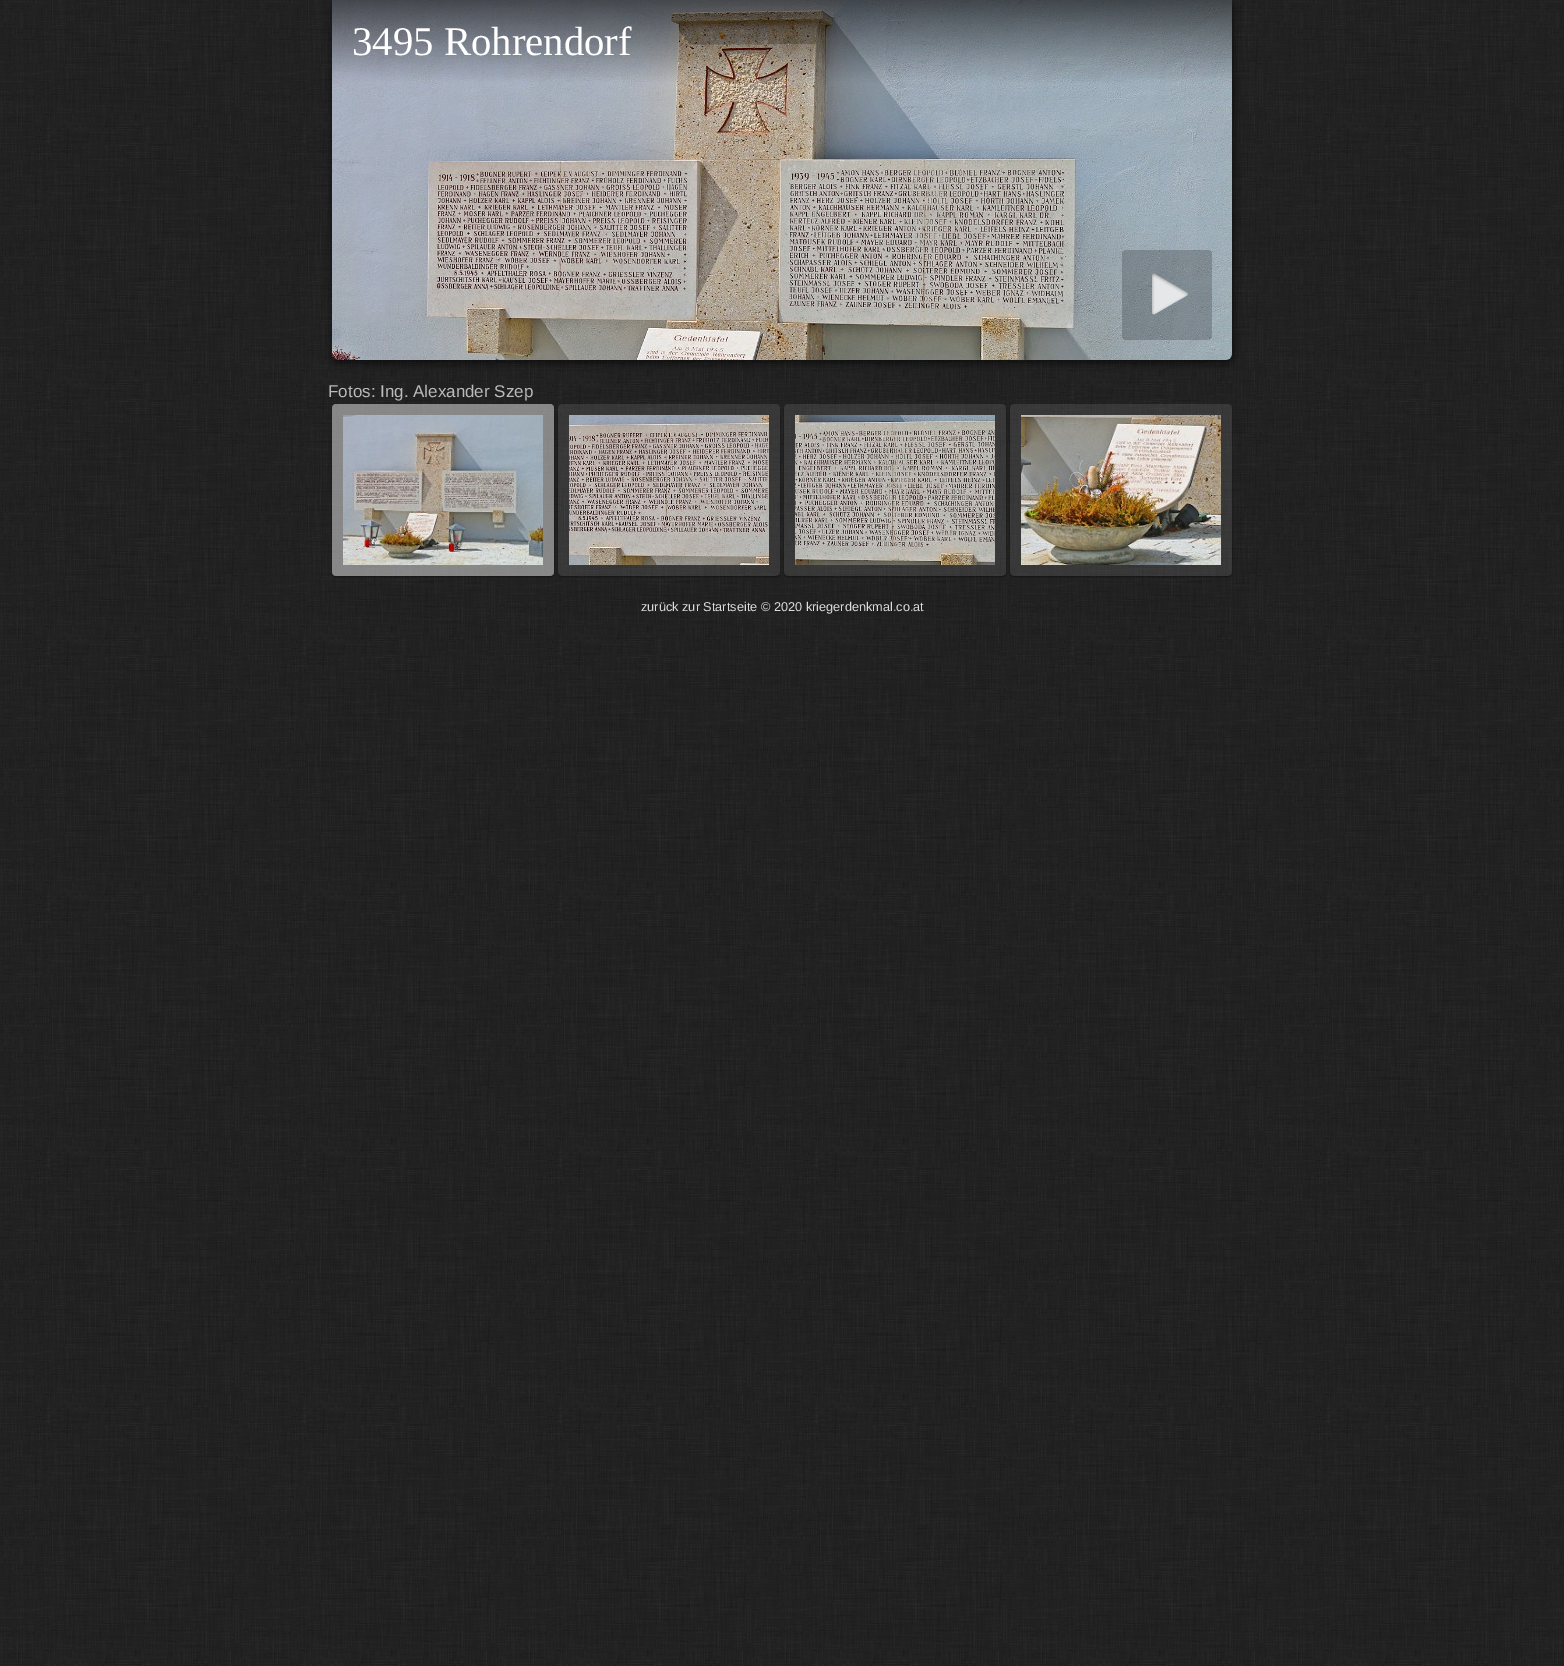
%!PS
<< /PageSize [1564 1666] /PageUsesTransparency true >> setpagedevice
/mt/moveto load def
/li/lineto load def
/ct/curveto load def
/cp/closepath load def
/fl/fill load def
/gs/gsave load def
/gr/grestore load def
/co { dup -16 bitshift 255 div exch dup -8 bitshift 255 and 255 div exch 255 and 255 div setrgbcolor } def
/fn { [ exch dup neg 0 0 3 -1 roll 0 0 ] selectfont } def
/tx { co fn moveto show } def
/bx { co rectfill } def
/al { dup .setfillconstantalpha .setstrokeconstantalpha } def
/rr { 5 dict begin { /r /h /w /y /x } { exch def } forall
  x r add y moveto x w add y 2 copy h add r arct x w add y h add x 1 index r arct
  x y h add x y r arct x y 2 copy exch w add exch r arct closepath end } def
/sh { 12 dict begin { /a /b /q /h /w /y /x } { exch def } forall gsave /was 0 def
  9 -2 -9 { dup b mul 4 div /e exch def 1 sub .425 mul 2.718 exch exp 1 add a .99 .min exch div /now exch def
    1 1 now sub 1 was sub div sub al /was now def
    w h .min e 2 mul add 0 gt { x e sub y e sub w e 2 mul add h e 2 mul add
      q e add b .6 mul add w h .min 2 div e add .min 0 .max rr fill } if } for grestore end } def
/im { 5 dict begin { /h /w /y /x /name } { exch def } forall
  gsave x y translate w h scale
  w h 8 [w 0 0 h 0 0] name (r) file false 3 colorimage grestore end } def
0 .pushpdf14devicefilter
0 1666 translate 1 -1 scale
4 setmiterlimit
0 0 1564 1666 16#222222 bx
(media/1.raw) 0 0 1564 1666 im
16#000000 co
333 3 900 360 6 4 .6 sh
(media/2.raw) 332 0 900 360 im
0.2 al
1122 250 90 90 4 rr fl
1 al
(media/3.raw) 1152 273 36 42 im
gs
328 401 mt 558 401 li 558 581 li 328 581 li cp 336 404 mt 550 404 li 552 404 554 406 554 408 ct 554 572 li 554 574 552 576 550 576 ct 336 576 li 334 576 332 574 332 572 ct 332 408 li 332 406 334 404 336 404 ct cp eoclip newpath
332 405 222 172 4 1 .4 sh
gr
0.1 al
16#FFFFFF co
332 404 222 172 4 rr fl
0.4 al
332 404 222 172 4 rr fl
1 al
(media/4.raw) 343 415 200 150 im
gs
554 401 mt 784 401 li 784 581 li 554 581 li cp 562 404 mt 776 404 li 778 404 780 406 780 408 ct 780 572 li 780 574 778 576 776 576 ct 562 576 li 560 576 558 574 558 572 ct 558 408 li 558 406 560 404 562 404 ct cp eoclip newpath
16#000000 co
558 405 222 172 4 1 .4 sh
gr
0.1 al
558 404 222 172 4 rr fl
1 al
(media/5.raw) 569 415 200 150 im
gs
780 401 mt 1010 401 li 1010 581 li 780 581 li cp 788 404 mt 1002 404 li 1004 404 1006 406 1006 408 ct 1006 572 li 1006 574 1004 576 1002 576 ct 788 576 li 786 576 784 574 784 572 ct 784 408 li 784 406 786 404 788 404 ct cp eoclip newpath
16#000000 co
784 405 222 172 4 1 .4 sh
gr
0.1 al
784 404 222 172 4 rr fl
1 al
(media/6.raw) 795 415 200 150 im
gs
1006 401 mt 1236 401 li 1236 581 li 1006 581 li cp 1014 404 mt 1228 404 li 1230 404 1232 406 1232 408 ct 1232 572 li 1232 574 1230 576 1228 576 ct 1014 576 li 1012 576 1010 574 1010 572 ct 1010 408 li 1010 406 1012 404 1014 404 ct cp eoclip newpath
16#000000 co
1010 405 222 172 4 1 .4 sh
gr
0.1 al
1010 404 222 172 4 rr fl
1 al
(media/7.raw) 1021 415 200 150 im
(3495 Rohrendorf) 352 55 /LiberationSerif-Regular 40.75 16#FFFFFF tx
(Fotos: Ing. Alexander Szep) 328 397 /LiberationSans-Regular 17 16#BBBBBB tx
(zurück zur Startseite © 2020 kriegerdenkmal.co.at) 641 611 /LiberationSans-Regular 12.75 16#DDDDDD tx
.poppdf14devicefilter showpage
